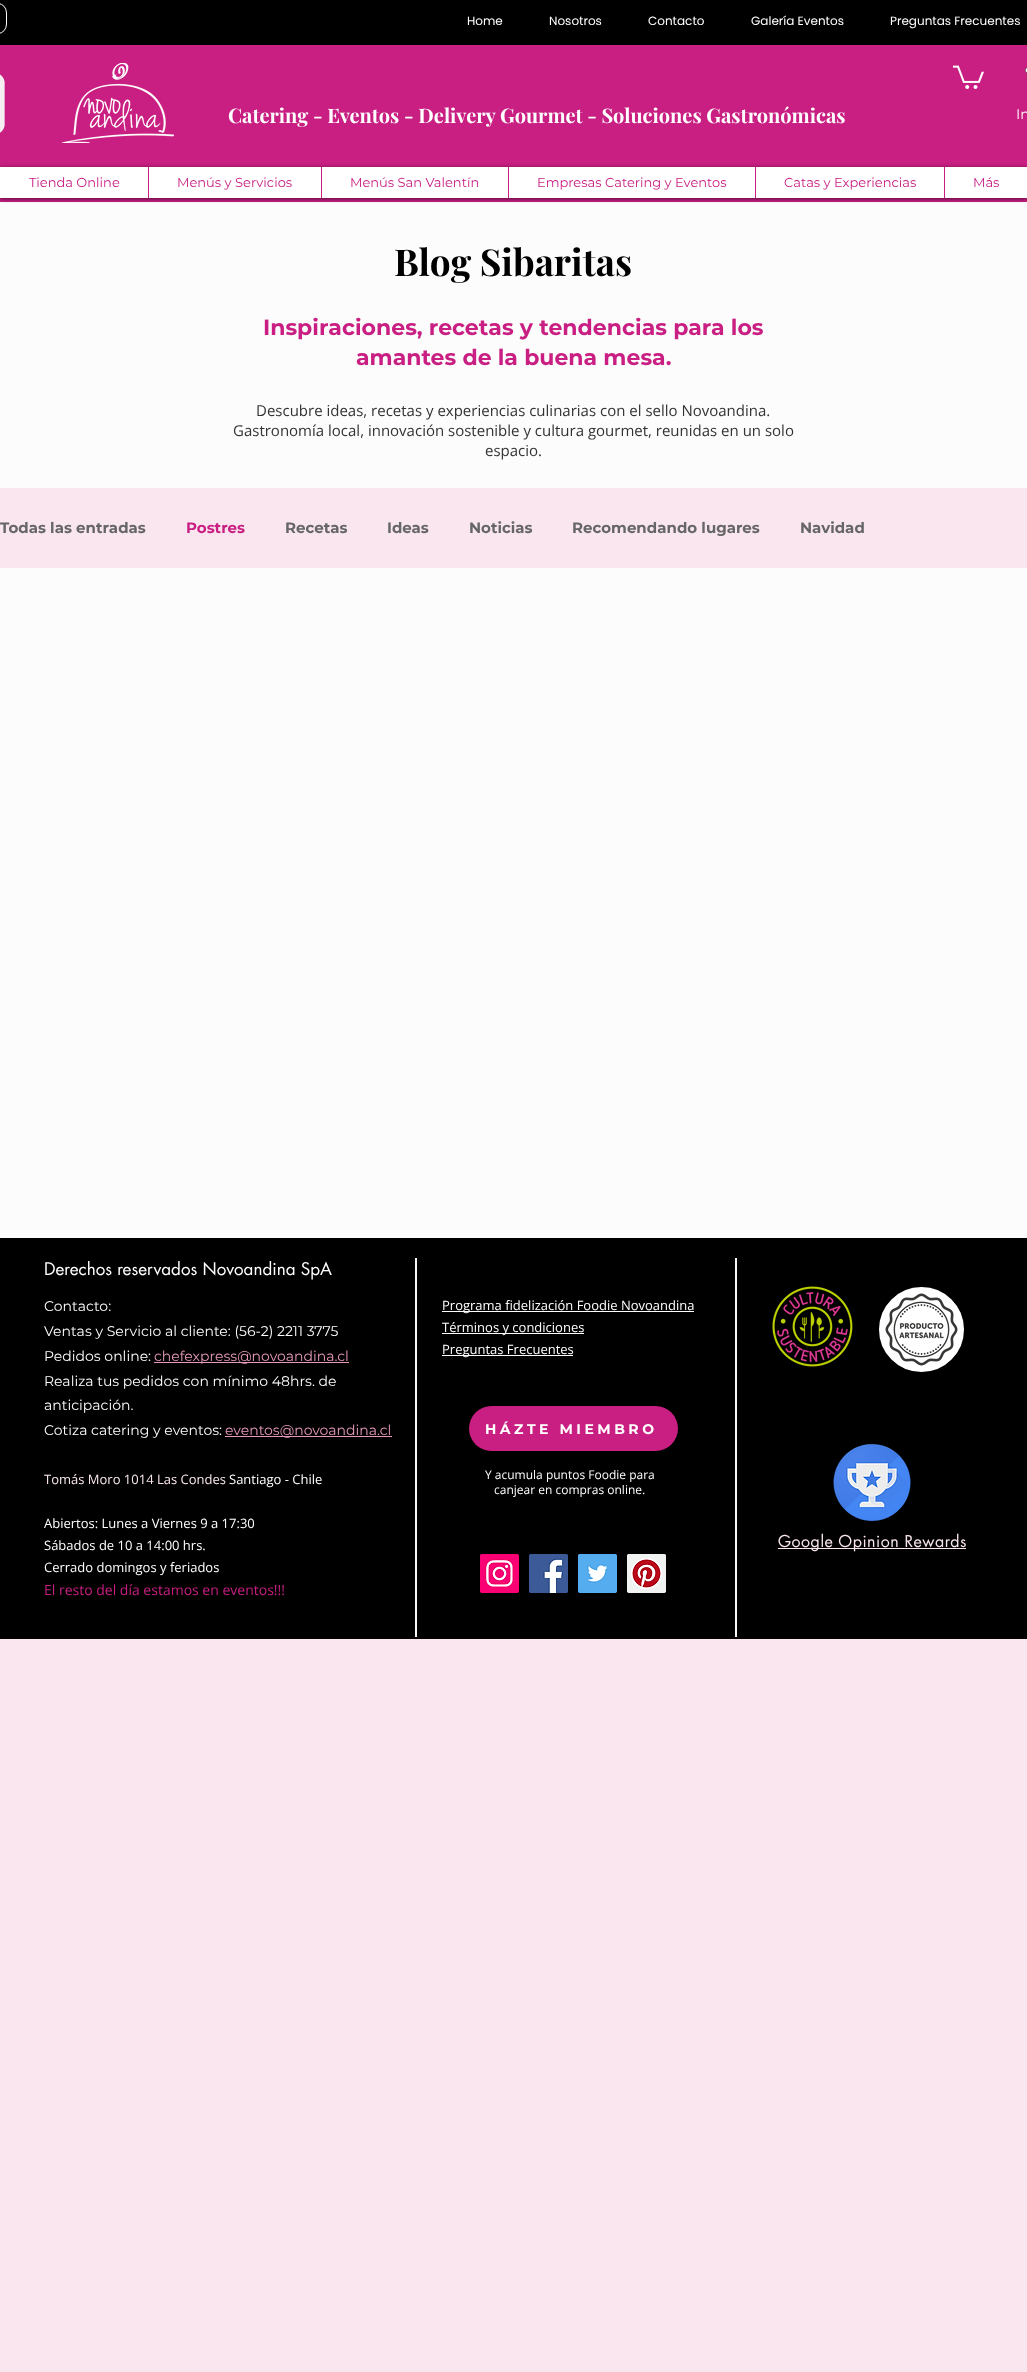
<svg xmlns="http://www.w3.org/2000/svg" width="1027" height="2372">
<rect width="100%" height="100%" fill="#fae6ef"/>
<rect width="1027" height="45" fill="#000"/>
<rect x="-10.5" y="3.5" width="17" height="30" rx="9.5" fill="none" stroke="#fff"/>
<text x="467" y="25" style="font-family:Poppins;font-size:12px;fill:#fff">Home</text>
<text x="549" y="25" style="font-family:Poppins;font-size:12px;fill:#fff">Nosotros</text>
<text x="648" y="25" style="font-family:Poppins;font-size:12px;fill:#fff">Contacto</text>
<text x="751" y="25" style="font-family:Poppins;font-size:12px;fill:#fff">Galería Eventos</text>
<text x="890" y="25" style="font-family:Poppins;font-size:12px;fill:#fff">Preguntas Frecuentes</text>
<rect y="45" width="1027" height="157" fill="#c91e82"/>
<image x="0" y="74" width="5" height="59" href="media/1.png"/>
<image x="62" y="63" width="112" height="80" href="media/2.png"/>
<text x="228" y="123" style="font-family:Playfair Display;font-size:20px;font-weight:bold;fill:#fff">Catering - Eventos - Delivery Gourmet - Soluciones Gastronómicas</text>
<image x="953" y="65" width="31" height="24" href="media/3.png"/>
<image x="1025" y="67" width="2" height="13" href="media/4.png"/>
<text x="1016" y="119" style="font-family:Montserrat;font-size:14px;fill:#fff">In</text>
<rect y="202" width="1027" height="1036" fill="#fcfcfc"/>
<rect y="168" width="1027" height="31" fill="#00000099" filter="blur(2px)"/>
<rect y="167" width="1027" height="31" fill="#fff"/>
<text x="29" y="187" style="font-family:Montserrat;font-size:13px;fill:#c91e82">Tienda Online</text>
<rect x="148" y="167" width="1" height="31" fill="#c91e82"/>
<text x="177" y="187" style="font-family:Montserrat;font-size:13px;fill:#c91e82">Menús y Servicios</text>
<rect x="321" y="167" width="1" height="31" fill="#c91e82"/>
<text x="350" y="187" style="font-family:Montserrat;font-size:13px;fill:#c91e82">Menús San Valentín</text>
<rect x="508" y="167" width="1" height="31" fill="#c91e82"/>
<text x="537" y="187" style="font-family:Montserrat;font-size:13px;fill:#c91e82">Empresas Catering y Eventos</text>
<rect x="755" y="167" width="1" height="31" fill="#c91e82"/>
<text x="784" y="187" style="font-family:Montserrat;font-size:13px;fill:#c91e82">Catas y Experiencias</text>
<rect x="944" y="167" width="1" height="31" fill="#c91e82"/>
<text x="973" y="187" style="font-family:Montserrat;font-size:13px;fill:#c91e82">Más</text>
<text x="394" y="276" style="font-family:Playfair Display;font-size:37px;font-weight:bold;fill:#000">Blog Sibaritas</text>
<text x="263" y="335" style="font-family:Montserrat;font-size:22px;font-weight:bold;fill:#c91e82">Inspiraciones, recetas y tendencias para los</text>
<text x="356" y="365" style="font-family:Montserrat;font-size:22px;font-weight:bold;fill:#c91e82">amantes de la buena mesa.</text>
<text x="256" y="416" style="font-family:Open Sans;font-size:15px;fill:#333">Descubre ideas, recetas y experiencias culinarias con el sello Novoandina.</text>
<text x="233" y="436" style="font-family:Open Sans;font-size:15px;fill:#333">Gastronomía local, innovación sostenible y cultura gourmet, reunidas en un solo</text>
<text x="485" y="456" style="font-family:Open Sans;font-size:15px;fill:#333">espacio.</text>
<rect y="488" width="1027" height="80" fill="#fae6ef"/>
<text x="0" y="533" style="font-family:Montserrat;font-size:15px;font-weight:bold;fill:#666">Todas las entradas</text>
<text x="186" y="533" style="font-family:Montserrat;font-size:15px;font-weight:bold;fill:#c91e82">Postres</text>
<text x="285" y="533" style="font-family:Montserrat;font-size:15px;font-weight:bold;fill:#666">Recetas</text>
<text x="387" y="533" style="font-family:Montserrat;font-size:15px;font-weight:bold;fill:#666">Ideas</text>
<text x="469" y="533" style="font-family:Montserrat;font-size:15px;font-weight:bold;fill:#666">Noticias</text>
<text x="572" y="533" style="font-family:Montserrat;font-size:15px;font-weight:bold;fill:#666">Recomendando lugares</text>
<text x="800" y="533" style="font-family:Montserrat;font-size:15px;font-weight:bold;fill:#666">Navidad</text>
<rect y="1238" width="1027" height="401" fill="#000"/>
<text x="44" y="1275" style="font-family:futura;font-size:17px;fill:#fff">Derechos reservados Novoandina SpA</text>
<rect x="415" y="1258" width="2" height="379" fill="#f7f7f7"/>
<rect x="735" y="1258" width="2" height="379" fill="#f7f7f7"/>
<text x="44" y="1311" style="font-family:Montserrat;font-size:14px;fill:#fff">Contacto:</text>
<text x="44" y="1336" style="font-family:Montserrat;font-size:14px;fill:#fff">Ventas y Servicio al cliente: (56-2) 2211 3775</text>
<text x="44" y="1361" style="font-family:Montserrat;font-size:14px;fill:#fff">Pedidos online:</text>
<rect x="154" y="1362" width="195" height="1" fill="#e899bb"/>
<text x="154" y="1361" style="font-family:Montserrat;font-size:14px;fill:#e899bb">chefexpress@novoandina.cl</text>
<text x="44" y="1386" style="font-family:Montserrat;font-size:14px;fill:#fff">Realiza tus pedidos con mínimo 48hrs. de</text>
<text x="44" y="1410" style="font-family:Montserrat;font-size:14px;fill:#fff">anticipación.</text>
<text x="44" y="1435" style="font-family:Montserrat;font-size:14px;fill:#fff">Cotiza catering y eventos:</text>
<rect x="225" y="1436" width="167" height="1" fill="#e899bb"/>
<text x="225" y="1435" style="font-family:Montserrat;font-size:14px;fill:#e899bb">eventos@novoandina.cl</text>
<text x="44" y="1484" style="font-family:Open Sans;font-size:13px;fill:#fae6ef">Tomás Moro 1014 Las Condes</text>
<text x="229" y="1484" style="font-family:Open Sans;font-size:13px;fill:#fff">Santiago - Chile</text>
<text x="44" y="1528" style="font-family:Open Sans;font-size:13px;fill:#fff">Abiertos: Lunes a Viernes 9 a 17:30</text>
<text x="44" y="1550" style="font-family:Open Sans;font-size:13px;fill:#fff">Sábados de 10 a 14:00 hrs.</text>
<text x="44" y="1572" style="font-family:Open Sans;font-size:13px;fill:#fff">Cerrado domingos y feriados</text>
<text x="44" y="1595" style="font-family:Open Sans;font-size:14px;fill:#c91e82">El resto del día estamos en eventos!!!</text>
<rect x="442" y="1311" width="252" height="1" fill="#fff"/>
<text x="442" y="1310" style="font-family:Open Sans;font-size:13px;fill:#fff">Programa fidelización Foodie Novoandina</text>
<rect x="442" y="1333" width="142" height="1" fill="#fff"/>
<text x="442" y="1332" style="font-family:Open Sans;font-size:13px;fill:#fff">Términos y condiciones</text>
<rect x="442" y="1355" width="131" height="1" fill="#fff"/>
<text x="442" y="1354" style="font-family:Open Sans;font-size:13px;fill:#fff">Preguntas Frecuentes</text>
<image x="772" y="1286" width="81" height="81" href="media/5.png"/>
<circle cx="921.5" cy="1329.5" r="39.5" fill="#fff" stroke="#fff" stroke-width="6"/>
<image x="885" y="1293" width="73" height="73" href="media/6.png"/>
<rect x="469" y="1406" width="209" height="45" rx="22.5" fill="#c91e82"/>
<text x="485" y="1434" style="font-family:Montserrat;font-size:14px;font-weight:bold;letter-spacing:3.5px;fill:#fff">HÁZTE MIEMBRO</text>
<text x="485" y="1479" style="font-family:Open Sans;font-size:12px;fill:#fff">Y acumula puntos Foodie para</text>
<text x="494" y="1494" style="font-family:Open Sans;font-size:12px;fill:#fff">canjear en compras online.</text>
<image x="833" y="1443" width="78" height="79" href="media/7.png"/>
<rect x="778" y="1548" width="188" height="1" fill="#fae6ef"/>
<text x="778" y="1547" style="font-family:futura;font-size:16px;letter-spacing:0.5px;fill:#fae6ef">Google Opinion Rewards</text>
<image x="480" y="1554" width="39" height="39" href="media/8.png"/>
<image x="529" y="1554" width="39" height="39" href="media/9.png"/>
<image x="578" y="1554" width="39" height="39" href="media/10.png"/>
<image x="627" y="1554" width="39" height="39" href="media/11.png"/>
</svg>
